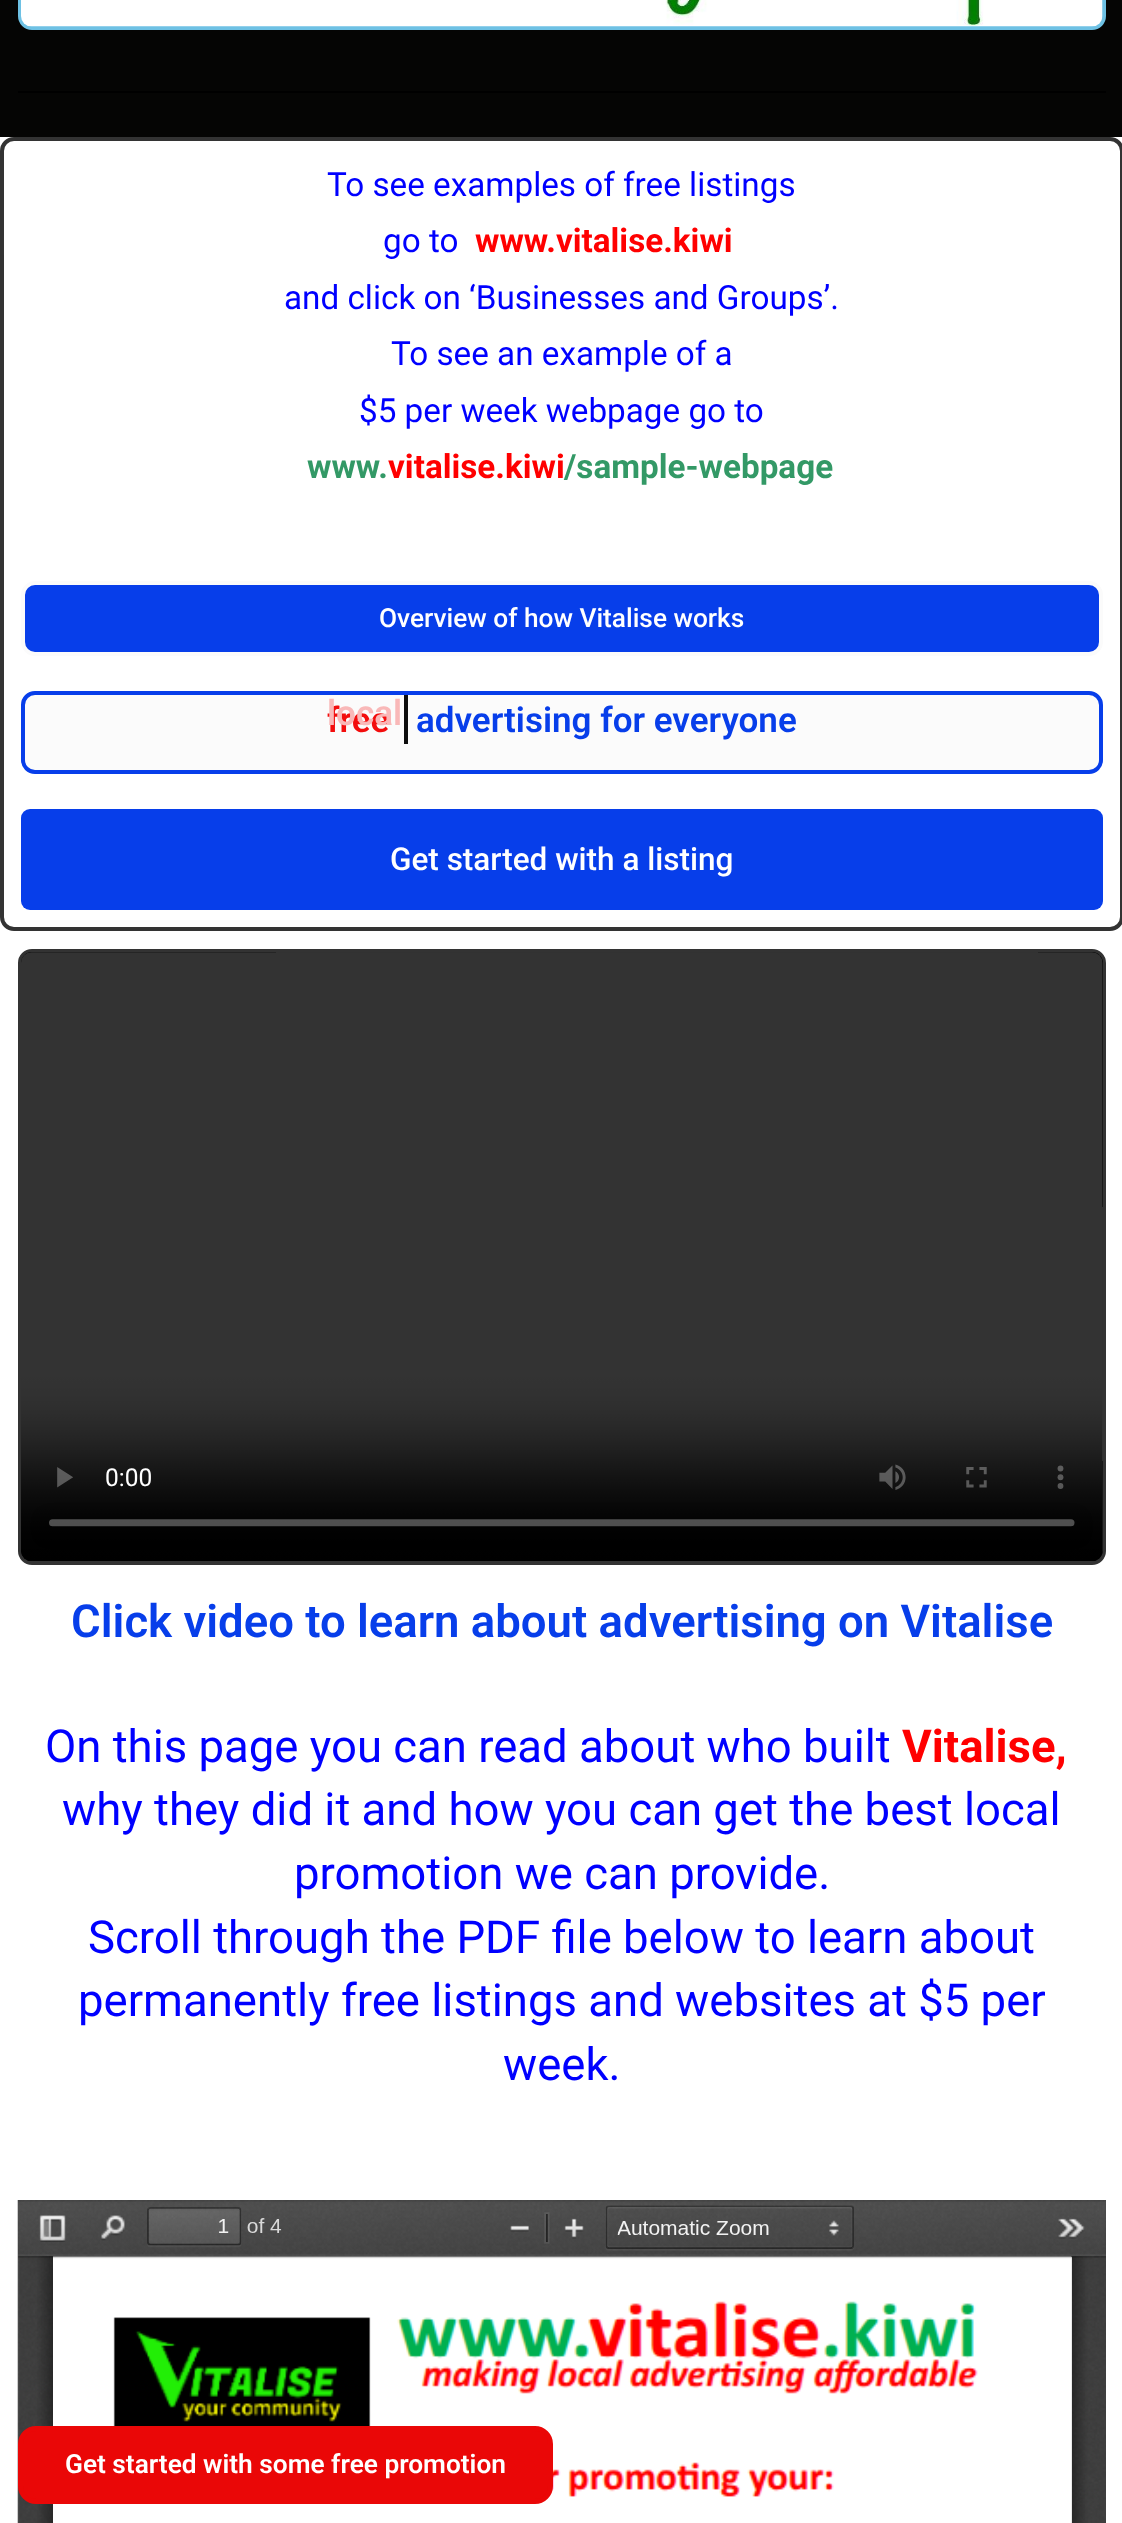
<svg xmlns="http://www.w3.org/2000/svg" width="1122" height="2523">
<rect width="100%" height="100%" fill="#fff"/>
<rect width="1122" height="137" fill="#050504"/>
<rect x="20" y="-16" width="1084" height="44" rx="12" fill="none" stroke="#6ec1e4" stroke-width="4"/>
<image x="21" y="0" width="1082" height="27" href="media/1.png"/>
<rect x="18" y="91" width="1088" height="2" fill="#000"/>
<rect x="2" y="139" width="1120" height="790" rx="12" fill="none" stroke="#333" stroke-width="4"/>
<text x="327" y="196" style="font-family:Roboto;font-size:33.25px;fill:#00f">To see examples of free listings</text>
<text x="383" y="252" style="font-family:Roboto;font-size:33.25px;fill:#00f">go to</text>
<text x="475" y="252" style="font-family:Roboto;font-size:33.25px;font-weight:bold;fill:#f00">www.vitalise.kiwi</text>
<text x="284" y="309" style="font-family:Roboto;font-size:33.25px;fill:#00f">and click on ‘Businesses and Groups’.</text>
<text x="391" y="365" style="font-family:Roboto;font-size:33.25px;fill:#00f">To see an example of a</text>
<text x="359" y="422" style="font-family:Roboto;font-size:33.25px;fill:#00f">$5 per week webpage go to</text>
<text x="307" y="478" style="font-family:Roboto;font-size:33.25px;font-weight:bold;fill:#396">www.</text>
<text x="388" y="478" style="font-family:Roboto;font-size:33.25px;font-weight:bold;fill:#f00">vitalise.kiwi</text>
<text x="564" y="478" style="font-family:Roboto;font-size:33.25px;font-weight:bold;fill:#396">/sample-webpage</text>
<rect x="23" y="583" width="1078" height="71" rx="12" fill="#073eea" stroke="#fbfbfb" stroke-width="4"/>
<text x="379" y="627" style="font-family:Roboto;font-size:26.25px;font-weight:500;fill:#fff">Overview of how Vitalise works</text>
<rect x="23" y="693" width="1078" height="79" rx="12" fill="#fbfbfb" stroke="#073eea" stroke-width="4"/>
<text x="327" y="732" style="font-family:Roboto;font-size:35px;font-weight:600;fill:#f30d0d">free</text>
<text x="327" y="725" style="font-family:Roboto;font-size:35px;font-weight:600;fill:#f9b8b8">local</text>
<rect x="404" y="695" width="4" height="49" fill="#0d0d0d"/>
<text x="416" y="732" style="font-family:Roboto;font-size:35px;font-weight:600;fill:#073eea">advertising for everyone</text>
<rect x="21" y="809" width="1082" height="101" rx="9" fill="#073eea"/>
<text x="390" y="870" style="font-family:Roboto;font-size:31.5px;font-weight:500;fill:#fff">Get started with a listing</text>
<rect x="20" y="951" width="1084" height="612" rx="12" fill="none" stroke="#333" stroke-width="4"/>
<rect x="21" y="952" width="1082" height="609" rx="11" fill="#000"/>
<image x="21" y="952" width="1082" height="609" href="media/2.png"/>
<text x="71" y="1637" style="font-family:Roboto;font-size:45.5px;font-weight:600;fill:#073eea">Click video to learn about advertising on Vitalise</text>
<text x="45" y="1762" style="font-family:Roboto;font-size:45.5px;fill:#00f">On this page you can read about who built</text>
<text x="902" y="1762" style="font-family:Roboto;font-size:45.5px;font-weight:bold;fill:#f00">Vitalise,</text>
<text x="62" y="1825" style="font-family:Roboto;font-size:45.5px;fill:#00f">why they did it and how you can get the best local</text>
<text x="294" y="1889" style="font-family:Roboto;font-size:45.5px;fill:#00f">promotion we can provide.</text>
<text x="88" y="1953" style="font-family:Roboto;font-size:45.5px;fill:#00f">Scroll through the PDF file below to learn about</text>
<text x="78" y="2016" style="font-family:Roboto;font-size:45.5px;fill:#00f">permanently free listings and websites at $5 per</text>
<text x="503" y="2080" style="font-family:Roboto;font-size:45.5px;fill:#00f">week.</text>
<image x="17" y="2200" width="1089" height="323" href="media/3.png"/>
<rect x="20.5" y="2428.5" width="530" height="73" rx="15.5" fill="#ea0707" stroke="#ea0707" stroke-width="5"/>
<text x="65" y="2473" style="font-family:Roboto;font-size:26.25px;font-weight:600;fill:#fff">Get started with some free promotion</text>
</svg>
